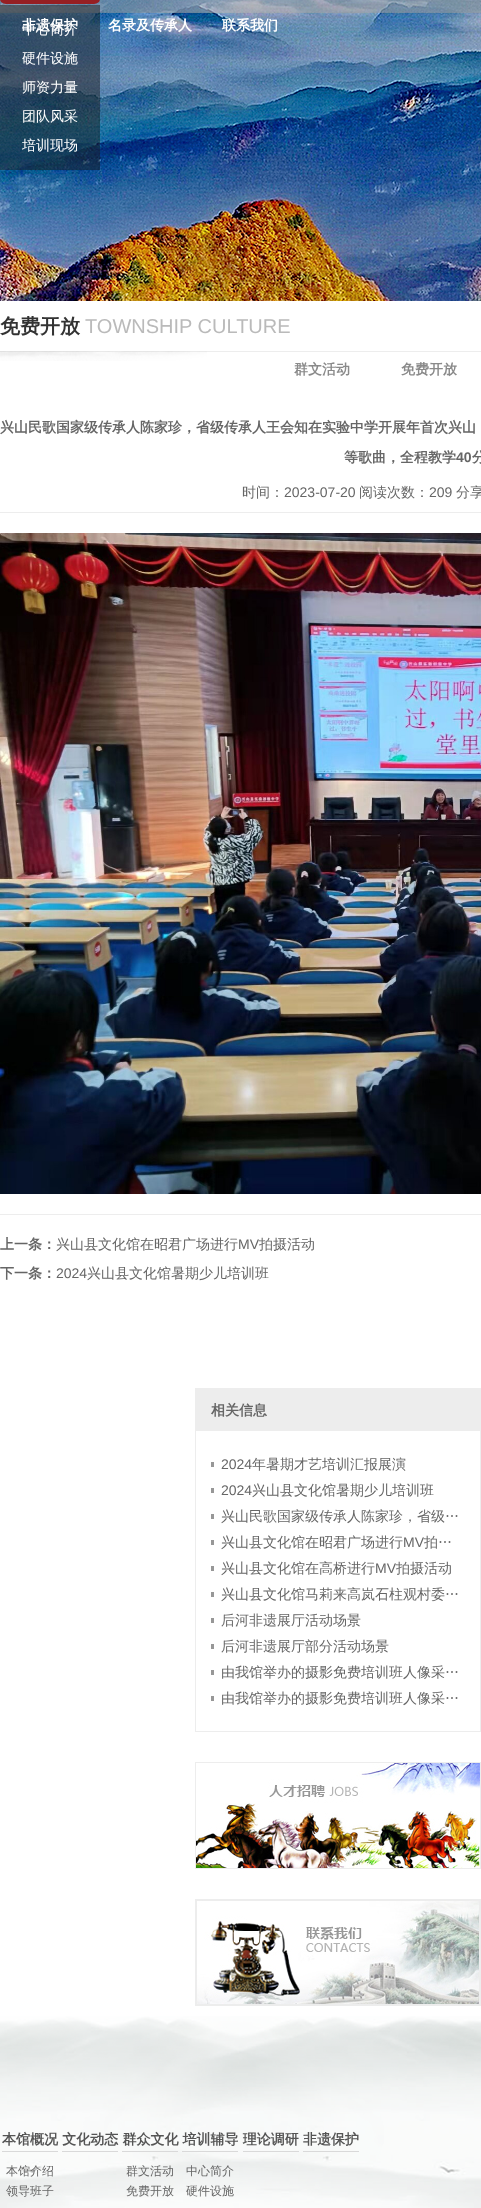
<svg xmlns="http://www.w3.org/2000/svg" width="481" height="2208">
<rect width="100%" height="100%" fill="#fff"/>
<image x="0" y="0" width="481" height="301" href="media/1.png"/>
<image x="0" y="0" width="481" height="13" href="media/2.png"/>
<rect y="5" width="100" height="165" fill="#1c1c1c80"/>
<text x="22" y="34" style="font-family:WenQuanYi Zen Hei;font-size:14px;font-weight:500;fill:#fff">中心简介</text>
<text x="22" y="30" style="font-family:WenQuanYi Zen Hei;font-size:14px;font-weight:bold;fill:#fff">非遗保护</text>
<text x="108" y="30" style="font-family:WenQuanYi Zen Hei;font-size:14px;font-weight:bold;fill:#fff">名录及传承人</text>
<text x="222" y="30" style="font-family:WenQuanYi Zen Hei;font-size:14px;font-weight:bold;fill:#fff">联系我们</text>
<rect y="-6" width="100" height="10" rx="6" fill="#961f23"/>
<text x="22" y="63" style="font-family:WenQuanYi Zen Hei;font-size:14px;font-weight:500;fill:#fff">硬件设施</text>
<text x="22" y="92" style="font-family:WenQuanYi Zen Hei;font-size:14px;font-weight:500;fill:#fff">师资力量</text>
<text x="22" y="121" style="font-family:WenQuanYi Zen Hei;font-size:14px;font-weight:500;fill:#fff">团队风采</text>
<text x="22" y="150" style="font-family:WenQuanYi Zen Hei;font-size:14px;font-weight:500;fill:#fff">培训现场</text>
<rect y="351" width="481" height="1" fill="#ededed"/>
<text x="0" y="333" style="font-family:WenQuanYi Zen Hei;font-size:20px;font-weight:bold;fill:#333">免费开放</text>
<text x="85" y="333" style="font-family:Liberation Sans;font-size:20px;fill:#bababa">TOWNSHIP CULTURE</text>
<text x="294" y="374" style="font-family:WenQuanYi Zen Hei;font-size:14px;font-weight:bold;fill:#8a8a8a">群文活动</text>
<text x="401" y="374" style="font-family:WenQuanYi Zen Hei;font-size:14px;font-weight:bold;fill:#8a8a8a">免费开放</text>
<image x="0" y="351" width="207" height="10" href="media/3.png"/>
<text x="0" y="432" style="font-family:WenQuanYi Zen Hei;font-size:14px;font-weight:bold;fill:#666">兴山民歌国家级传承人陈家珍，省级传承人王会知在实验中学开展年首次兴山</text>
<text x="344" y="462" style="font-family:WenQuanYi Zen Hei;font-size:14px;font-weight:bold;fill:#666">等歌曲，全程教学</text>
<text x="456" y="462" style="font-family:Liberation Sans;font-size:14px;font-weight:bold;fill:#666">40</text>
<text x="472" y="462" style="font-family:WenQuanYi Zen Hei;font-size:14px;font-weight:bold;fill:#666">分</text>
<rect y="512" width="481" height="1" fill="#ededed"/>
<text x="242" y="497" style="font-family:WenQuanYi Zen Hei;font-size:14px;font-weight:500;fill:#666">时间：</text>
<text x="284" y="497" style="font-family:Liberation Sans;font-size:14px;fill:#666">2023-07-20</text>
<text x="359" y="497" style="font-family:WenQuanYi Zen Hei;font-size:14px;font-weight:500;fill:#666">阅读次数：</text>
<text x="429" y="497" style="font-family:Liberation Sans;font-size:14px;fill:#666">209</text>
<text x="456" y="497" style="font-family:WenQuanYi Zen Hei;font-size:14px;font-weight:500;fill:#666">分享</text>
<image x="0" y="533" width="481" height="661" href="media/4.png"/>
<rect y="1214" width="481" height="1" fill="#ededed"/>
<text x="0" y="1249" style="font-family:WenQuanYi Zen Hei;font-size:14px;font-weight:bold;fill:#666">上一条：</text>
<text x="56" y="1249" style="font-family:WenQuanYi Zen Hei;font-size:14px;font-weight:500;fill:#666">兴山县文化馆在昭君广场进行</text>
<text x="238" y="1249" style="font-family:Liberation Sans;font-size:14px;fill:#666">MV</text>
<text x="259" y="1249" style="font-family:WenQuanYi Zen Hei;font-size:14px;font-weight:500;fill:#666">拍摄活动</text>
<text x="0" y="1278" style="font-family:WenQuanYi Zen Hei;font-size:14px;font-weight:bold;fill:#666">下一条：</text>
<text x="56" y="1278" style="font-family:Liberation Sans;font-size:14px;fill:#666">2024</text>
<text x="87" y="1278" style="font-family:WenQuanYi Zen Hei;font-size:14px;font-weight:500;fill:#666">兴山县文化馆暑期少儿培训班</text>
<rect x="195.5" y="1388.5" width="285" height="343" fill="none" stroke="#ededed"/>
<rect x="196" y="1389" width="284" height="42" fill="#ededed"/>
<text x="211" y="1415" style="font-family:WenQuanYi Zen Hei;font-size:14px;font-weight:bold;fill:#666">相关信息</text>
<rect x="211" y="1462" width="3" height="5" fill="#979797"/>
<text x="221" y="1469" style="font-family:Liberation Sans;font-size:14px;fill:#666">2024</text>
<text x="252" y="1469" style="font-family:WenQuanYi Zen Hei;font-size:14px;font-weight:500;fill:#666">年暑期才艺培训汇报展演</text>
<rect x="211" y="1488" width="3" height="5" fill="#979797"/>
<text x="221" y="1495" style="font-family:Liberation Sans;font-size:14px;fill:#666">2024</text>
<text x="252" y="1495" style="font-family:WenQuanYi Zen Hei;font-size:14px;font-weight:500;fill:#666">兴山县文化馆暑期少儿培训班</text>
<rect x="211" y="1514" width="3" height="5" fill="#979797"/>
<text x="221" y="1521" style="font-family:WenQuanYi Zen Hei;font-size:14px;font-weight:500;fill:#666">兴山民歌国家级传承人陈家珍，省级…</text>
<rect x="211" y="1540" width="3" height="5" fill="#979797"/>
<text x="221" y="1547" style="font-family:WenQuanYi Zen Hei;font-size:14px;font-weight:500;fill:#666">兴山县文化馆在昭君广场进行</text>
<text x="403" y="1547" style="font-family:Liberation Sans;font-size:14px;fill:#666">MV</text>
<text x="424" y="1547" style="font-family:WenQuanYi Zen Hei;font-size:14px;font-weight:500;fill:#666">拍…</text>
<rect x="211" y="1566" width="3" height="5" fill="#979797"/>
<text x="221" y="1573" style="font-family:WenQuanYi Zen Hei;font-size:14px;font-weight:500;fill:#666">兴山县文化馆在高桥进行</text>
<text x="375" y="1573" style="font-family:Liberation Sans;font-size:14px;fill:#666">MV</text>
<text x="396" y="1573" style="font-family:WenQuanYi Zen Hei;font-size:14px;font-weight:500;fill:#666">拍摄活动</text>
<rect x="211" y="1592" width="3" height="5" fill="#979797"/>
<text x="221" y="1599" style="font-family:WenQuanYi Zen Hei;font-size:14px;font-weight:500;fill:#666">兴山县文化馆马莉来高岚石柱观村委…</text>
<rect x="211" y="1618" width="3" height="5" fill="#979797"/>
<text x="221" y="1625" style="font-family:WenQuanYi Zen Hei;font-size:14px;font-weight:500;fill:#666">后河非遗展厅活动场景</text>
<rect x="211" y="1644" width="3" height="5" fill="#979797"/>
<text x="221" y="1651" style="font-family:WenQuanYi Zen Hei;font-size:14px;font-weight:500;fill:#666">后河非遗展厅部分活动场景</text>
<rect x="211" y="1670" width="3" height="5" fill="#979797"/>
<text x="221" y="1677" style="font-family:WenQuanYi Zen Hei;font-size:14px;font-weight:500;fill:#666">由我馆举办的摄影免费培训班人像采…</text>
<rect x="211" y="1696" width="3" height="5" fill="#979797"/>
<text x="221" y="1703" style="font-family:WenQuanYi Zen Hei;font-size:14px;font-weight:500;fill:#666">由我馆举办的摄影免费培训班人像采…</text>
<rect x="195.5" y="1762.5" width="285" height="106" fill="none" stroke="#ededed"/>
<image x="196" y="1763" width="284" height="105" href="media/5.png"/>
<rect x="195.5" y="1899.5" width="285" height="106" fill="none" stroke="#ededed"/>
<image x="196" y="1900" width="284" height="105" href="media/6.png"/>
<image x="0" y="2016" width="481" height="192" href="media/7.png"/>
<rect x="2" y="2151" width="56" height="1" fill="#d9d9d9"/>
<text x="2" y="2144" style="font-family:WenQuanYi Zen Hei;font-size:14px;font-weight:bold;fill:#555">本馆概况 文化动态 群众文化 培训辅导 理论调研 非遗保护</text>
<text x="6" y="2175" style="font-family:WenQuanYi Zen Hei;font-size:12px;font-weight:500;fill:#666">本馆介绍</text>
<text x="6" y="2195" style="font-family:WenQuanYi Zen Hei;font-size:12px;font-weight:500;fill:#666">领导班子</text>
<rect x="62" y="2151" width="56" height="1" fill="#d9d9d9"/>
<rect x="243" y="2151" width="56" height="1" fill="#d9d9d9"/>
<rect x="303" y="2151" width="56" height="1" fill="#d9d9d9"/>
<rect x="122" y="2151" width="56" height="1" fill="#d9d9d9"/>
<text x="126" y="2175" style="font-family:WenQuanYi Zen Hei;font-size:12px;font-weight:500;fill:#666">群文活动</text>
<text x="126" y="2195" style="font-family:WenQuanYi Zen Hei;font-size:12px;font-weight:500;fill:#666">免费开放</text>
<rect x="182" y="2151" width="56" height="1" fill="#d9d9d9"/>
<text x="186" y="2175" style="font-family:WenQuanYi Zen Hei;font-size:12px;font-weight:500;fill:#666">中心简介</text>
<text x="186" y="2195" style="font-family:WenQuanYi Zen Hei;font-size:12px;font-weight:500;fill:#666">硬件设施</text>
</svg>
